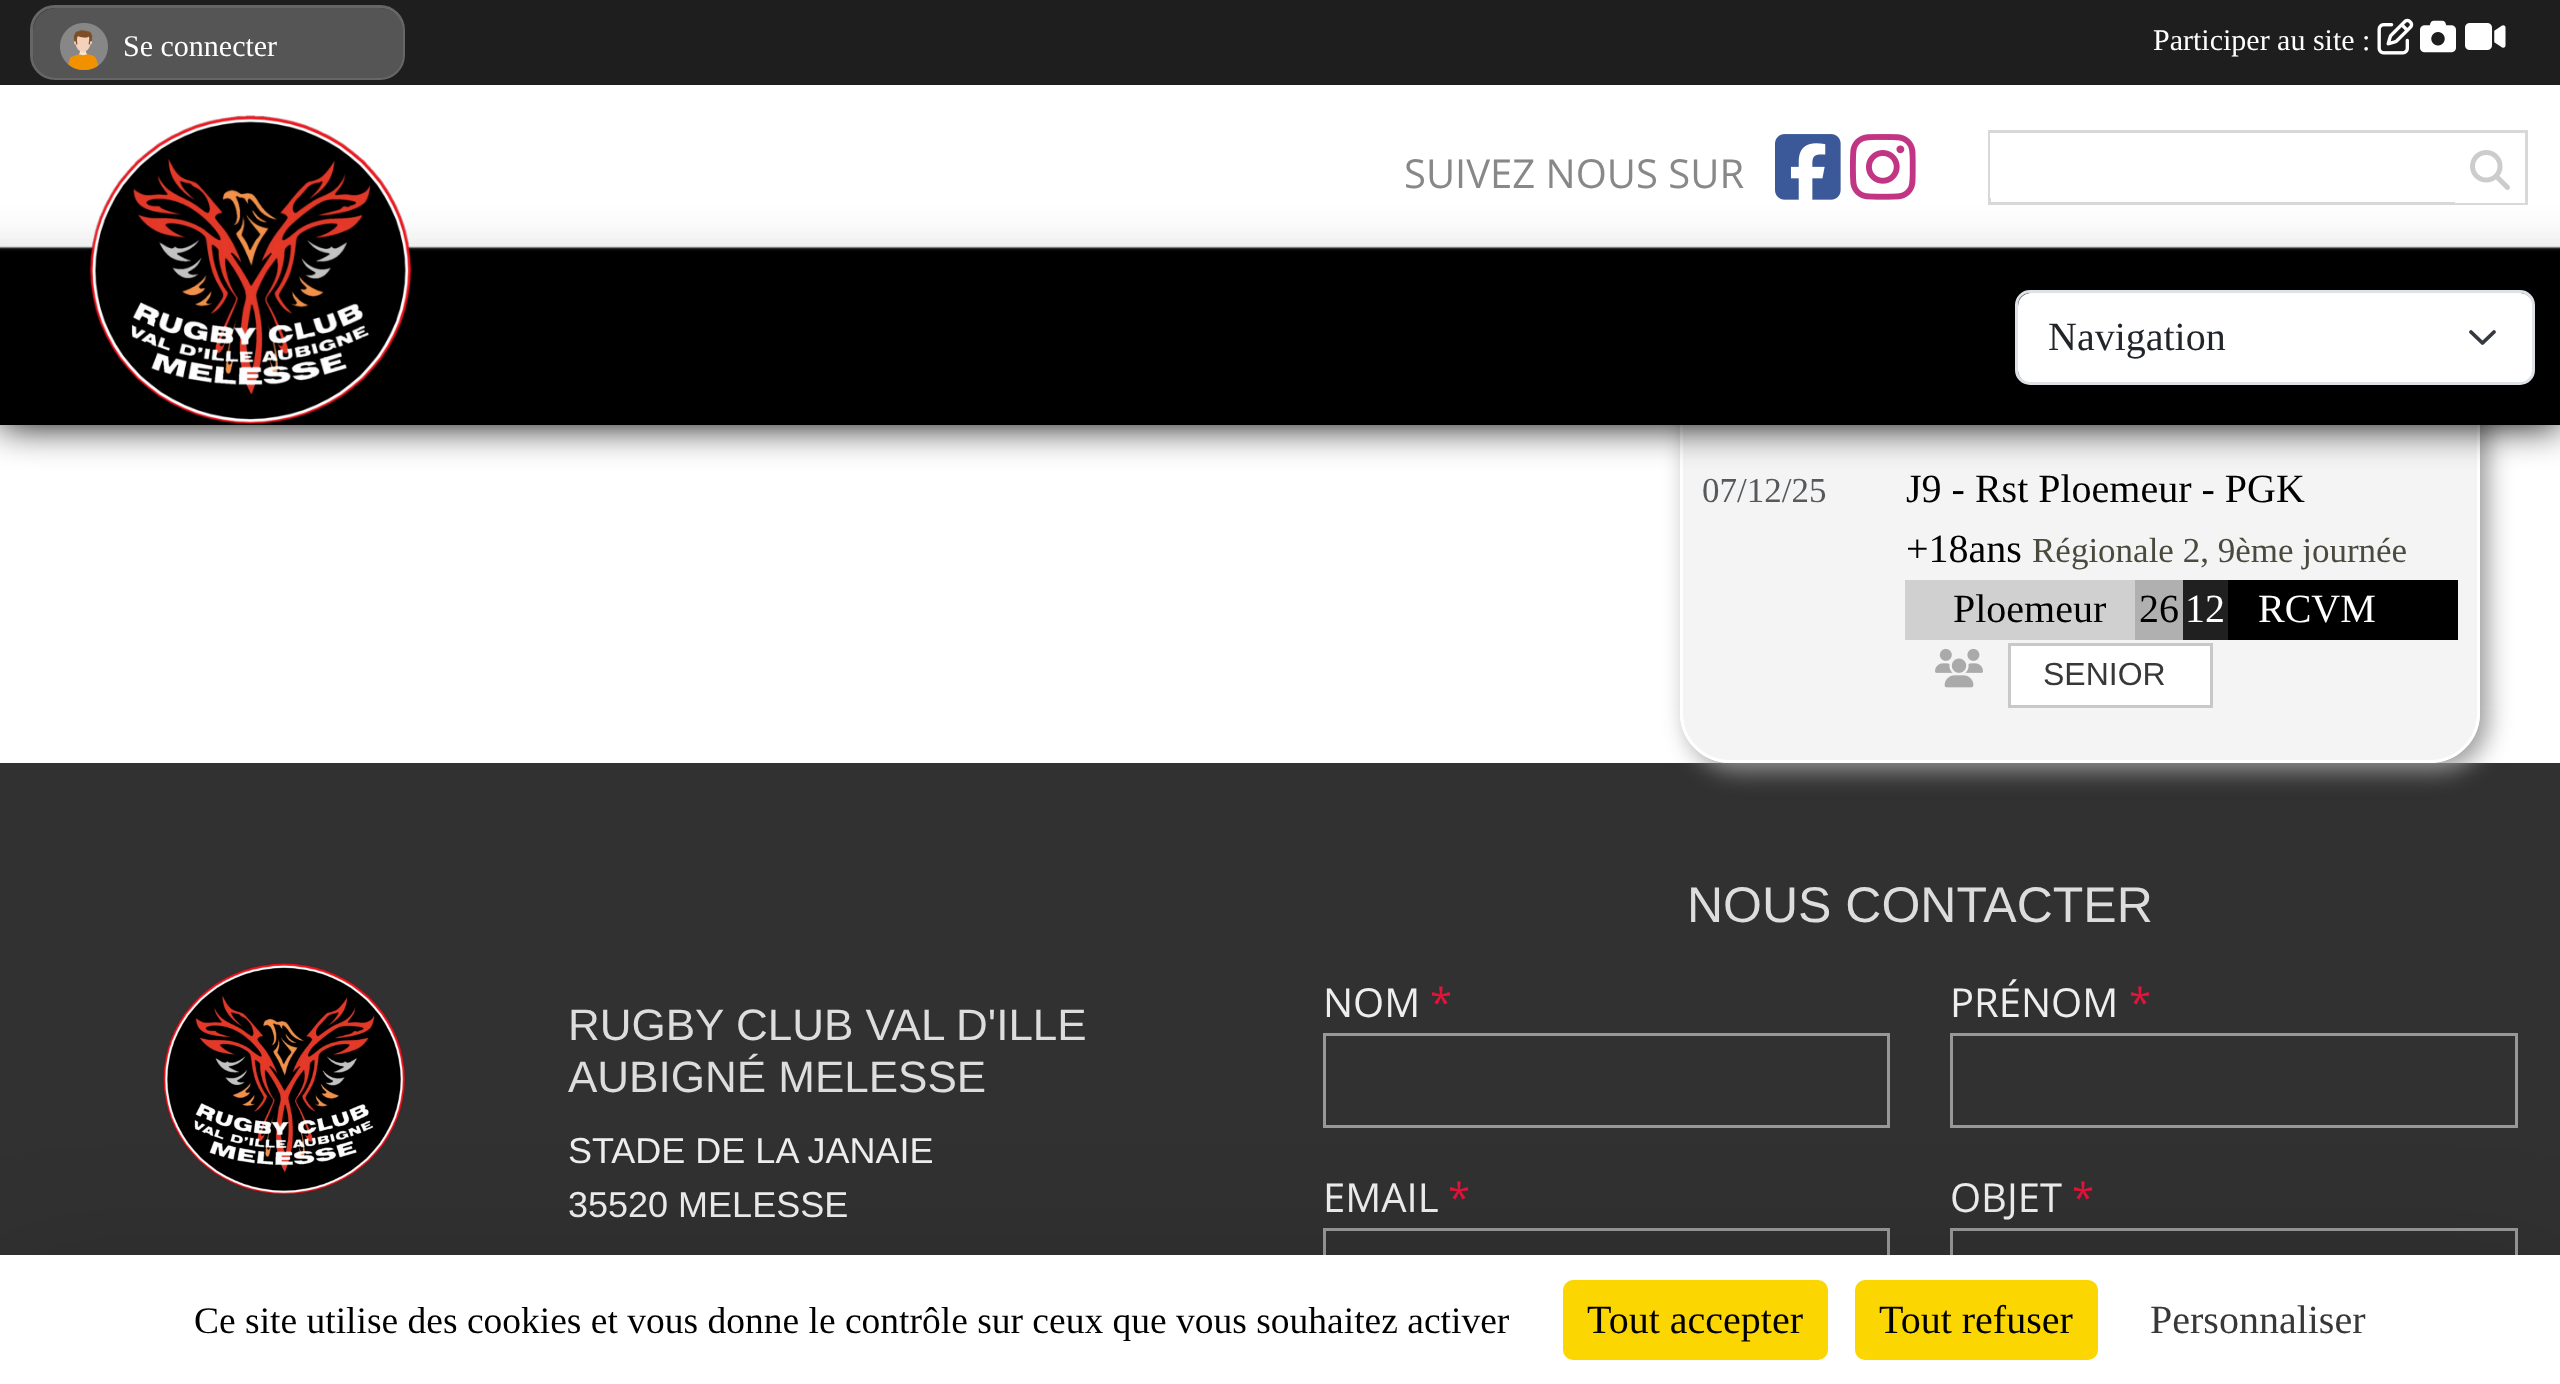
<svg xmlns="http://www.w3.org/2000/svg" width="2560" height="1384">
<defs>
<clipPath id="clip1"><path d="M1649 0h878v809h-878zm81-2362h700c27.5 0 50 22.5 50 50v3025c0 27.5-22.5 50-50 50h-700c-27.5 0-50-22.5-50-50v-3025c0-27.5 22.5-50 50-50z" clip-rule="evenodd"/></clipPath>
</defs>
<rect width="100%" height="100%" fill="#313131"/>
<rect y="425" width="2560" height="338" fill="#fff"/>
<g clip-path="url(#clip1)">
<rect x="1688" y="-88" width="800" height="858" rx="50" fill="#999" filter="blur(12.5px)"/>
</g>
<rect x="1681.5" y="-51.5" width="797" height="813" rx="48.5" fill="#f0f0f0b3" stroke="#fff" stroke-width="3"/>
<rect y="85" width="2560" height="340" fill="#000" filter="blur(19px)"/>
<rect width="2560" height="85" fill="#1e1e1e"/>
<rect x="31.5" y="6.5" width="372" height="72" rx="23.5" fill="#333" stroke="#666" stroke-width="3"/>
<rect x="33" y="8" width="370" height="70" rx="23" fill="#555"/>
<image x="60" y="23" width="48" height="47" href="media/1.png"/>
<text x="123" y="56" style="font-family:Liberation Serif;font-size:30px;fill:#fff">Se connecter</text>
<text x="2153" y="50" style="font-family:Liberation Serif;font-size:30px;fill:#fff">Participer au site :</text>
<image x="2377" y="18" width="37" height="37" href="media/2.png"/>
<image x="2420" y="20" width="36" height="33" href="media/3.png"/>
<image x="2465" y="23" width="41" height="27" href="media/4.png"/>
<rect y="246" width="2560" height="179" fill="#000"/>
<image x="0" y="85" width="2560" height="166" href="media/5.png"/>
<image x="89" y="115" width="323" height="310" href="media/6.png"/>
<text x="1404" y="188" style="font-family:Open Sans;font-size:40px;fill:#888">SUIVEZ NOUS SUR</text>
<image x="1775" y="134" width="66" height="66" href="media/7.png"/>
<image x="1850" y="134" width="66" height="66" href="media/8.png"/>
<rect x="1989.5" y="131.5" width="537" height="72" fill="none" stroke="#d8d8d8" stroke-width="3"/>
<rect x="1990" y="133" width="1" height="65" fill="#fff"/>
<rect x="2455" y="202" width="70" height="1" fill="#fff"/>
<image x="2470" y="150" width="40" height="40" href="media/9.png"/>
<rect x="2018" y="293" width="515" height="90" rx="13" fill="#fff"/>
<path d="M2471 332l11.5 11l11.5-11" fill="none" stroke="#343a40" stroke-width="3.8" stroke-linecap="round" stroke-linejoin="round"/>
<rect x="2016.5" y="291.5" width="517" height="92" rx="13.5" fill="none" stroke="#dee2e6" stroke-width="3"/>
<text x="2048" y="350" style="font-family:Liberation Serif;font-size:40px;fill:#212529">Navigation</text>
<text x="1702" y="502" style="font-family:Liberation Serif;font-size:35px;fill:#56595c">07/12/25</text>
<text x="1906" y="502" style="font-family:Liberation Serif;font-size:40px;fill:#000">J9 - Rst Ploemeur - PGK</text>
<text x="1906" y="562" style="font-family:Liberation Serif;font-size:40px;fill:#000">+18ans</text>
<text x="2032" y="562" style="font-family:Liberation Serif;font-size:35px;fill:#4a4a3e">Régionale 2, 9ème journée</text>
<rect x="1905" y="580" width="230" height="60" fill="#d0d0d0"/>
<text x="1953" y="622" style="font-family:Liberation Serif;font-size:40px;fill:#000">Ploemeur</text>
<rect x="2135" y="580" width="48" height="60" fill="#b0b0b0"/>
<text x="2139" y="622" style="font-family:Liberation Serif;font-size:40px;fill:#000">26</text>
<rect x="2183" y="580" width="45" height="60" fill="#202020"/>
<text x="2185" y="622" style="font-family:Liberation Serif;font-size:40px;fill:#fff">12</text>
<rect x="2228" y="580" width="230" height="60" fill="#000"/>
<text x="2258" y="622" style="font-family:Liberation Serif;font-size:40px;fill:#fff">RCVM</text>
<image x="1935" y="648" width="48" height="40" href="media/10.png"/>
<rect x="2009.5" y="644.5" width="202" height="62" fill="#fff" stroke="#c9c7c7" stroke-width="3"/>
<text x="2043" y="685" style="font-family:Liberation Sans;font-size:32px;fill:#383838">SENIOR</text>
<image x="163" y="963" width="243" height="232" href="media/11.png"/>
<text x="568" y="1040" style="font-family:Liberation Sans;font-size:44px;fill:#ddd">RUGBY CLUB VAL D'ILLE</text>
<text x="568" y="1092" style="font-family:Liberation Sans;font-size:44px;fill:#ddd">AUBIGNÉ MELESSE</text>
<text x="568" y="1163" style="font-family:Liberation Sans;font-size:36px;fill:#eee">STADE DE LA JANAIE</text>
<text x="568" y="1217" style="font-family:Liberation Sans;font-size:36px;fill:#eee">35520 MELESSE</text>
<text x="1687" y="922" style="font-family:Liberation Sans;font-size:50px;fill:#ddd">NOUS CONTACTER</text>
<text x="1323" y="1017" style="font-family:Open Sans;font-size:40px;fill:#eee">NOM</text>
<text x="1430" y="1017" style="font-family:Open Sans;font-size:40px;fill:#e4133a">*</text>
<rect x="1324.5" y="1034.5" width="564" height="92" fill="none" stroke="#989898" stroke-width="3"/>
<text x="1323" y="1212" style="font-family:Open Sans;font-size:40px;fill:#eee">EMAIL</text>
<text x="1448" y="1212" style="font-family:Open Sans;font-size:40px;fill:#e4133a">*</text>
<rect x="1324.5" y="1229.5" width="564" height="92" fill="none" stroke="#989898" stroke-width="3"/>
<text x="1950" y="1017" style="font-family:Open Sans;font-size:40px;fill:#eee">PRÉNOM</text>
<text x="2129" y="1017" style="font-family:Open Sans;font-size:40px;fill:#e4133a">*</text>
<rect x="1951.5" y="1034.5" width="565" height="92" fill="none" stroke="#989898" stroke-width="3"/>
<text x="1950" y="1212" style="font-family:Open Sans;font-size:40px;fill:#eee">OBJET</text>
<text x="2072" y="1212" style="font-family:Open Sans;font-size:40px;fill:#e4133a">*</text>
<rect x="1951.5" y="1229.5" width="565" height="92" fill="none" stroke="#989898" stroke-width="3"/>
<rect y="1305" width="2560" height="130" fill="#00000040" filter="blur(75px)"/>
<rect y="1255" width="2560" height="129" fill="#fff"/>
<text x="194" y="1333" style="font-family:Liberation Serif;font-size:37.5px;fill:#000">Ce site utilise des cookies et vous donne le contrôle sur ceux que vous souhaitez activer</text>
<rect x="1563" y="1280" width="265" height="80" rx="10" fill="#fbd600"/>
<text x="1587" y="1333" style="font-family:Liberation Serif;font-size:40px;fill:#000">Tout accepter</text>
<rect x="1855" y="1280" width="243" height="80" rx="10" fill="#fbd600"/>
<text x="1879" y="1333" style="font-family:Liberation Serif;font-size:40px;fill:#000">Tout refuser</text>
<text x="2150" y="1333" style="font-family:Liberation Serif;font-size:40px;fill:#383838">Personnaliser</text>
</svg>
